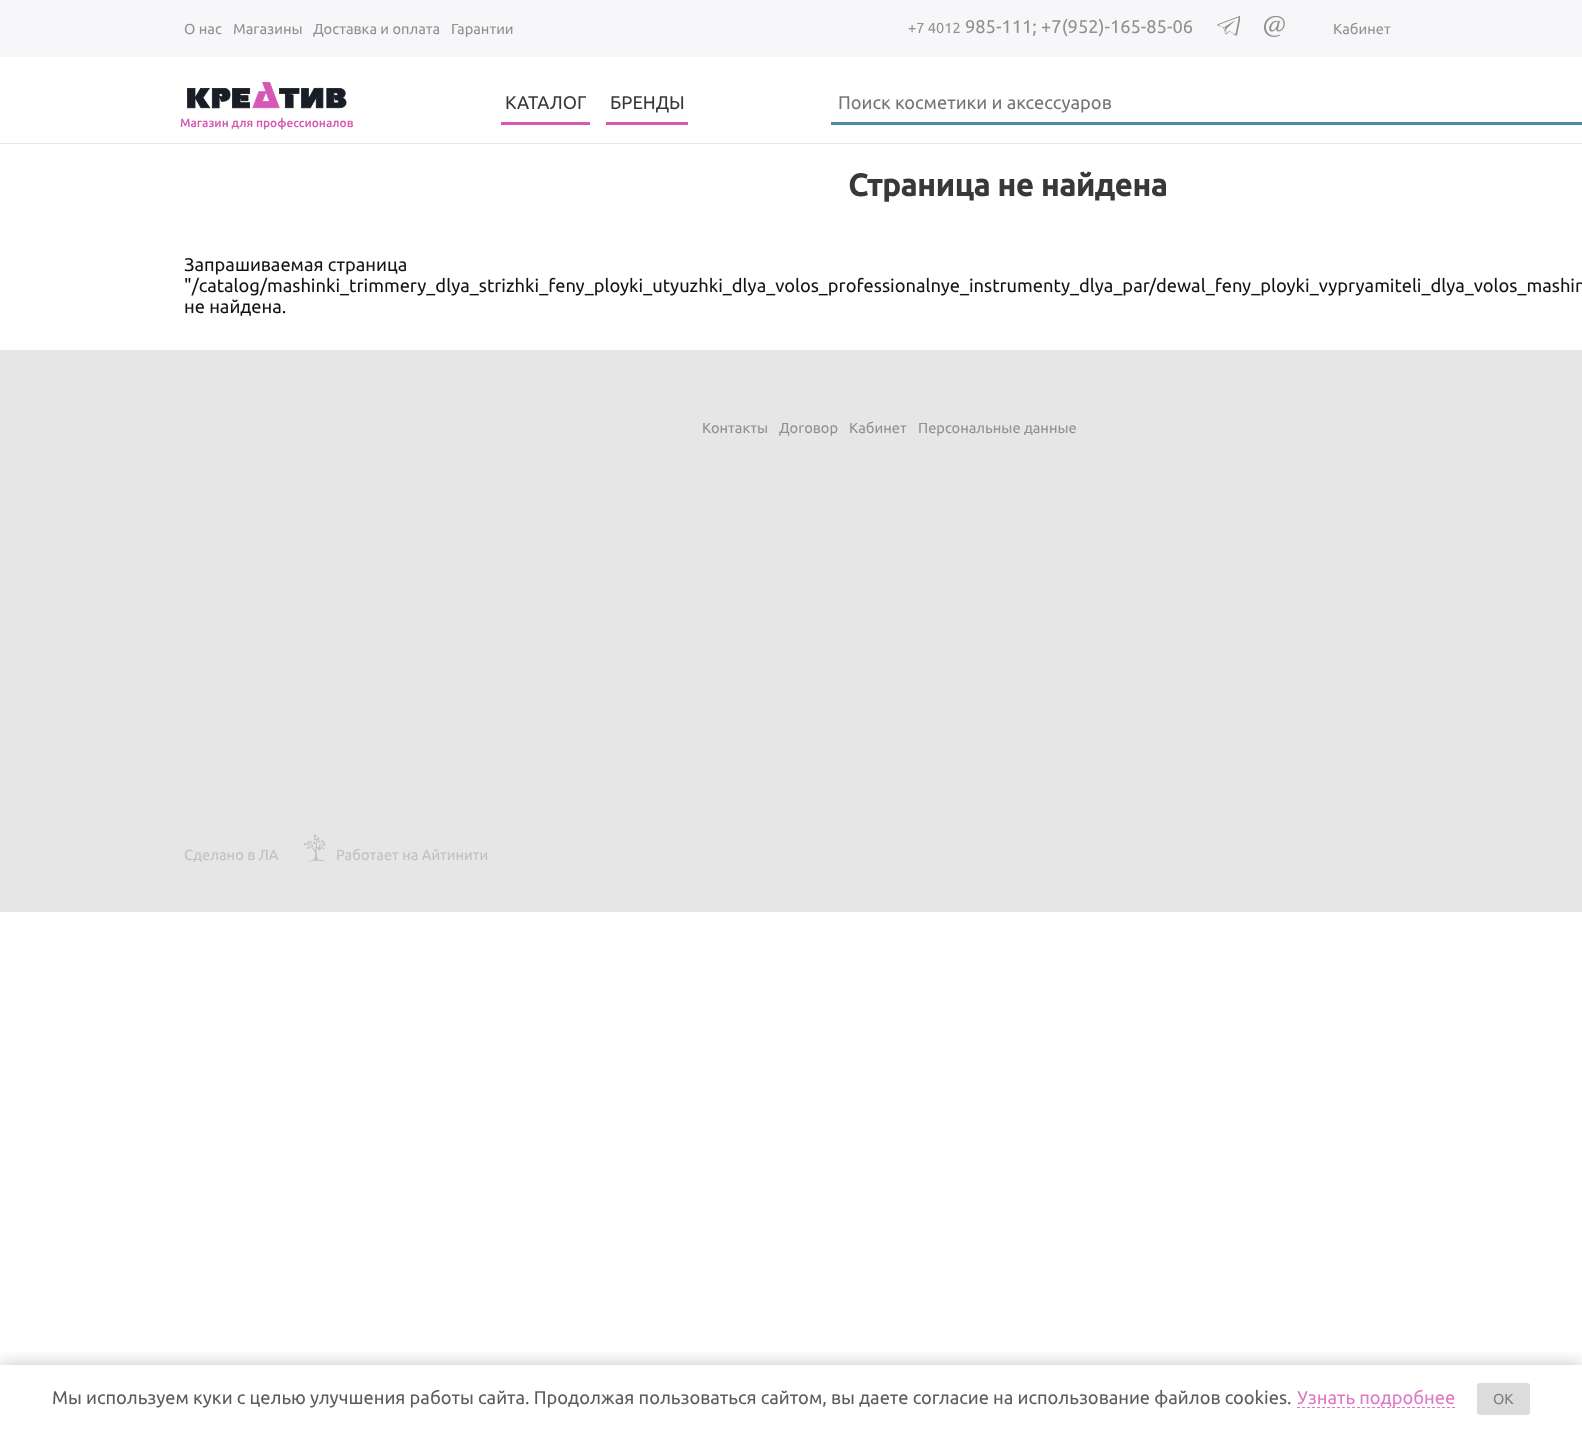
<svg xmlns="http://www.w3.org/2000/svg" width="1582" height="1433">
<defs>
<clipPath id="clip1"><rect x="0" y="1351" width="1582" height="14"/></clipPath>
</defs>
<rect width="100%" height="100%" fill="#fff"/>
<rect width="1582" height="57" fill="#f7f7f9"/>
<text x="184" y="34" style="font-family:Ubuntu;font-size:14.6px;fill:#919191">О нас</text>
<text x="233" y="34" style="font-family:Ubuntu;font-size:14.6px;fill:#919191">Магазины</text>
<text x="313" y="34" style="font-family:Ubuntu;font-size:14.6px;fill:#919191">Доставка и оплата</text>
<text x="451" y="34" style="font-family:Ubuntu;font-size:14.6px;fill:#919191">Гарантии</text>
<text x="908" y="33" style="font-family:Ubuntu;font-size:14.6px;fill:#919191">+7 4012</text>
<text x="965" y="33" style="font-family:Ubuntu;font-size:18.3px;fill:#919191">985-111; +7(952)-165-85-06</text>
<image x="1217" y="16" width="23" height="20" href="media/1.png"/>
<image x="1264" y="16" width="21" height="21" href="media/2.png"/>
<text x="1333" y="34" style="font-family:Ubuntu;font-size:14.6px;fill:#919191">Кабинет</text>
<rect y="143" width="1582" height="1" fill="#e6e6e6"/>
<rect x="501" y="122" width="89" height="3" fill="#d757b5"/>
<text x="505" y="109" style="font-family:Ubuntu;font-size:18.3px;fill:#383838">КАТАЛОГ</text>
<rect x="606" y="122" width="82" height="3" fill="#d757b5"/>
<text x="610" y="109" style="font-family:Ubuntu;font-size:18.3px;fill:#383838">БРЕНДЫ</text>
<rect x="831" y="122" width="751" height="3" fill="#4b8aa8"/>
<text x="838" y="109" style="font-family:Ubuntu;font-size:18.3px;fill:#757575">Поиск косметики и аксессуаров</text>
<image x="187" y="82" width="160" height="27" href="media/3.png"/>
<text x="180" y="127" style="font-family:Ubuntu;font-size:11.9px;font-weight:500;fill:#d757b5">Магазин для профессионалов</text>
<text x="848" y="196" style="font-family:Ubuntu;font-size:31.1px;font-weight:bold;fill:#383838">Страница не найдена</text>
<text x="184" y="271" style="font-family:Ubuntu;font-size:18.3px;fill:#141414">Запрашиваемая страница</text>
<text x="184" y="292" style="font-family:Ubuntu;font-size:18.3px;fill:#141414">"/catalog/mashinki_trimmery_dlya_strizhki_feny_ployki_utyuzhki_dlya_volos_professionalnye_instrumenty_dlya_par/dewal_feny_ployki_vypryamiteli_dlya_volos_mashin</text>
<text x="184" y="313" style="font-family:Ubuntu;font-size:18.3px;fill:#141414">не найдена.</text>
<rect y="350" width="1582" height="562" fill="#e6e6e6"/>
<text x="702" y="433" style="font-family:Ubuntu;font-size:14.6px;fill:#919191">Контакты</text>
<text x="779" y="433" style="font-family:Ubuntu;font-size:14.6px;fill:#919191">Договор</text>
<text x="849" y="433" style="font-family:Ubuntu;font-size:14.6px;fill:#919191">Кабинет</text>
<text x="918" y="433" style="font-family:Ubuntu;font-size:14.6px;fill:#919191">Персональные данные</text>
<text x="184" y="860" style="font-family:Ubuntu;font-size:14.6px;fill:#c0c0c0">Сделано в ЛА</text>
<image x="303" y="834" width="23" height="28" href="media/4.png"/>
<text x="336" y="860" style="font-family:Ubuntu;font-size:14.6px;fill:#c0c0c0">Работает на Айтинити</text>
<g clip-path="url(#clip1)">
<rect y="1365" width="1582" height="68" fill="#3333334d" filter="blur(9px)"/>
</g>
<text x="52" y="1404" style="font-family:Ubuntu;font-size:18.3px;fill:#5c5c5c">Мы используем куки с целью улучшения работы сайта. Продолжая пользоваться сайтом, вы даете согласие на использование файлов cookies.</text>
<path d="M1297 1407.5h158" fill="none" stroke="#df79c4" stroke-dasharray="3 2"/>
<text x="1297" y="1404" style="font-family:Ubuntu;font-size:18.3px;fill:#df79c4">Узнать подробнее</text>
<rect x="1477" y="1383" width="53" height="32" rx="3" fill="#dcdcdc"/>
<text x="1493" y="1404" style="font-family:Ubuntu;font-size:14.6px;fill:#7d7d7d">OK</text>
</svg>
